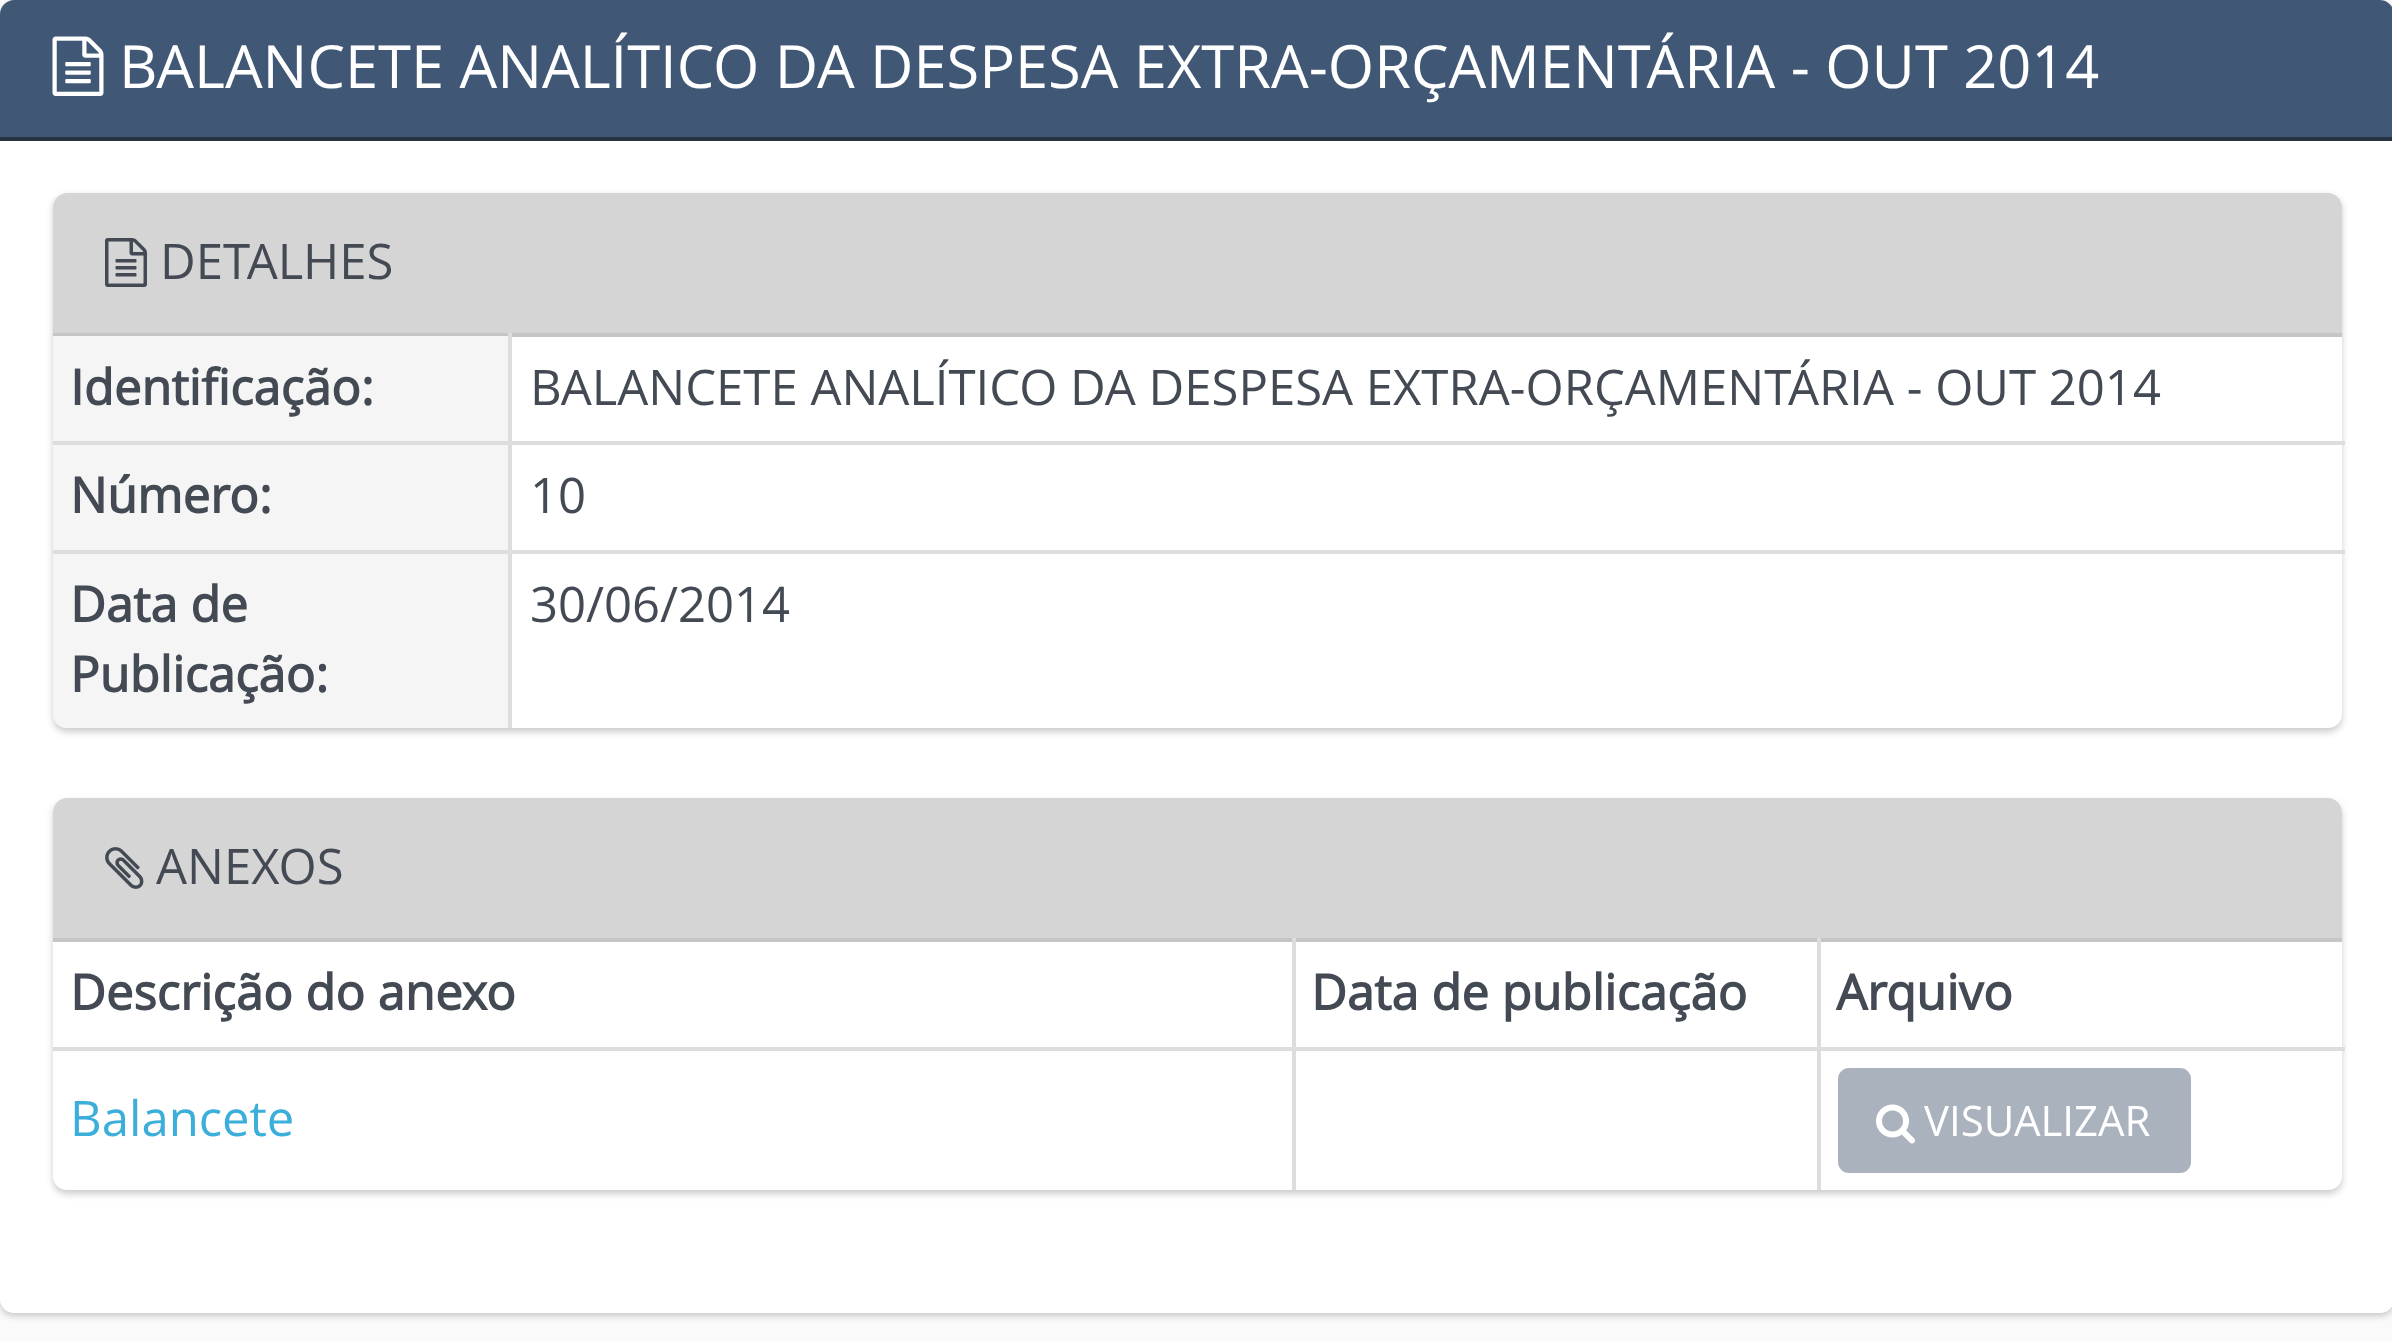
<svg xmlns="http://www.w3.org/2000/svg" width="2392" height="1341">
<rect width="100%" height="100%" fill="#fafafa"/>
<rect y="4" width="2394" height="1312" rx="14" fill="#00000033" filter="blur(3.5px)"/>
<rect width="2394" height="1313" rx="14" fill="#fff"/>
<path d="M14 0h2366c7.5 0 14 6.5 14 14v126h-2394v-126c0-7.5 6.5-14 14-14z" fill="#405875"/>
<rect y="137" width="2392" height="4" fill="#243242"/>
<image x="52" y="36" width="52" height="60" href="media/1.png"/>
<text x="119" y="88" style="font-family:Open Sans;font-size:59.5px;fill:#fff">BALANCETE ANALÍTICO DA DESPESA EXTRA-ORÇAMENTÁRIA - OUT 2014</text>
<rect x="53" y="196" width="2289" height="536" rx="14" fill="#00000033" filter="blur(3.5px)"/>
<rect x="53" y="193" width="2289" height="535" rx="14" fill="#fff"/>
<path d="M67 193h2261c7.5 0 14 6.5 14 14v129h-2289v-129c0-7.5 6.5-14 14-14z" fill="#d5d5d5"/>
<rect x="53" y="333" width="2289" height="4" fill="#c5c5c5"/>
<image x="105" y="238" width="42" height="49" href="media/2.png"/>
<text x="160" y="279" style="font-family:Open Sans;font-size:49px;fill:#434a54">DETALHES</text>
<rect x="53" y="336" width="455" height="105" fill="#f5f5f5"/>
<text x="70" y="405" style="font-family:Open Sans;font-size:49px;font-weight:bold;fill:#434a54">Identificação:</text>
<rect x="508" y="441" width="1837" height="4" fill="#ddd"/>
<path d="M53 550h458v178h-444c-7.5 0-14-6.5-14-14z" fill="#f5f5f5"/>
<rect x="508" y="550" width="1837" height="4" fill="#ddd"/>
<rect x="508" y="550" width="4" height="178" fill="#ddd"/>
<rect x="53" y="550" width="458" height="4" fill="#ddd"/>
<rect x="508" y="441" width="4" height="112" fill="#ddd"/>
<rect x="53" y="441" width="458" height="4" fill="#ddd"/>
<rect x="508" y="333" width="4" height="112" fill="#ddd"/>
<text x="530" y="405" style="font-family:Open Sans;font-size:49px;fill:#434a54">BALANCETE ANALÍTICO DA DESPESA EXTRA-ORÇAMENTÁRIA - OUT 2014</text>
<rect x="53" y="445" width="455" height="105" fill="#f5f5f5"/>
<text x="70" y="513" style="font-family:Open Sans;font-size:49px;font-weight:bold;fill:#434a54">Número:</text>
<text x="530" y="513" style="font-family:Open Sans;font-size:49px;fill:#434a54">10</text>
<text x="70" y="622" style="font-family:Open Sans;font-size:49px;font-weight:bold;fill:#434a54">Data de</text>
<text x="70" y="692" style="font-family:Open Sans;font-size:49px;font-weight:bold;fill:#434a54">Publicação:</text>
<text x="530" y="622" style="font-family:Open Sans;font-size:49px;fill:#434a54">30/06/2014</text>
<rect x="53" y="802" width="2289" height="392" rx="14" fill="#00000033" filter="blur(3.5px)"/>
<rect x="53" y="798" width="2289" height="392" rx="14" fill="#fff"/>
<path d="M67 798h2261c7.5 0 14 6.5 14 14v130h-2289v-130c0-7.5 6.5-14 14-14z" fill="#d5d5d5"/>
<rect x="53" y="938" width="2289" height="4" fill="#c5c5c5"/>
<image x="105" y="847" width="39" height="42" href="media/3.png"/>
<text x="156" y="884" style="font-family:Open Sans;font-size:49px;fill:#434a54">ANEXOS</text>
<text x="70" y="1010" style="font-family:Open Sans;font-size:49px;font-weight:bold;fill:#434a54">Descrição do anexo</text>
<rect x="1817" y="1047" width="528" height="4" fill="#ddd"/>
<rect x="1817" y="1047" width="4" height="143" fill="#ddd"/>
<rect x="1292" y="1047" width="528" height="4" fill="#ddd"/>
<rect x="1292" y="1047" width="4" height="143" fill="#ddd"/>
<rect x="53" y="1047" width="1242" height="4" fill="#ddd"/>
<rect x="1292" y="938" width="4" height="112" fill="#ddd"/>
<text x="1311" y="1010" style="font-family:Open Sans;font-size:49px;font-weight:bold;fill:#434a54">Data de publicação</text>
<rect x="1817" y="938" width="4" height="112" fill="#ddd"/>
<text x="1836" y="1010" style="font-family:Open Sans;font-size:49px;font-weight:bold;fill:#434a54">Arquivo</text>
<text x="70" y="1136" style="font-family:Open Sans;font-size:49px;fill:#3bafda">Balancete</text>
<rect x="1840" y="1070" width="349" height="101" rx="9" fill="#aab2bd" stroke="#aab2bd" stroke-width="4"/>
<image x="1876" y="1104" width="39" height="40" href="media/4.png"/>
<text x="1924" y="1136" style="font-family:Open Sans;font-size:42px;fill:#fff">VISUALIZAR</text>
</svg>
